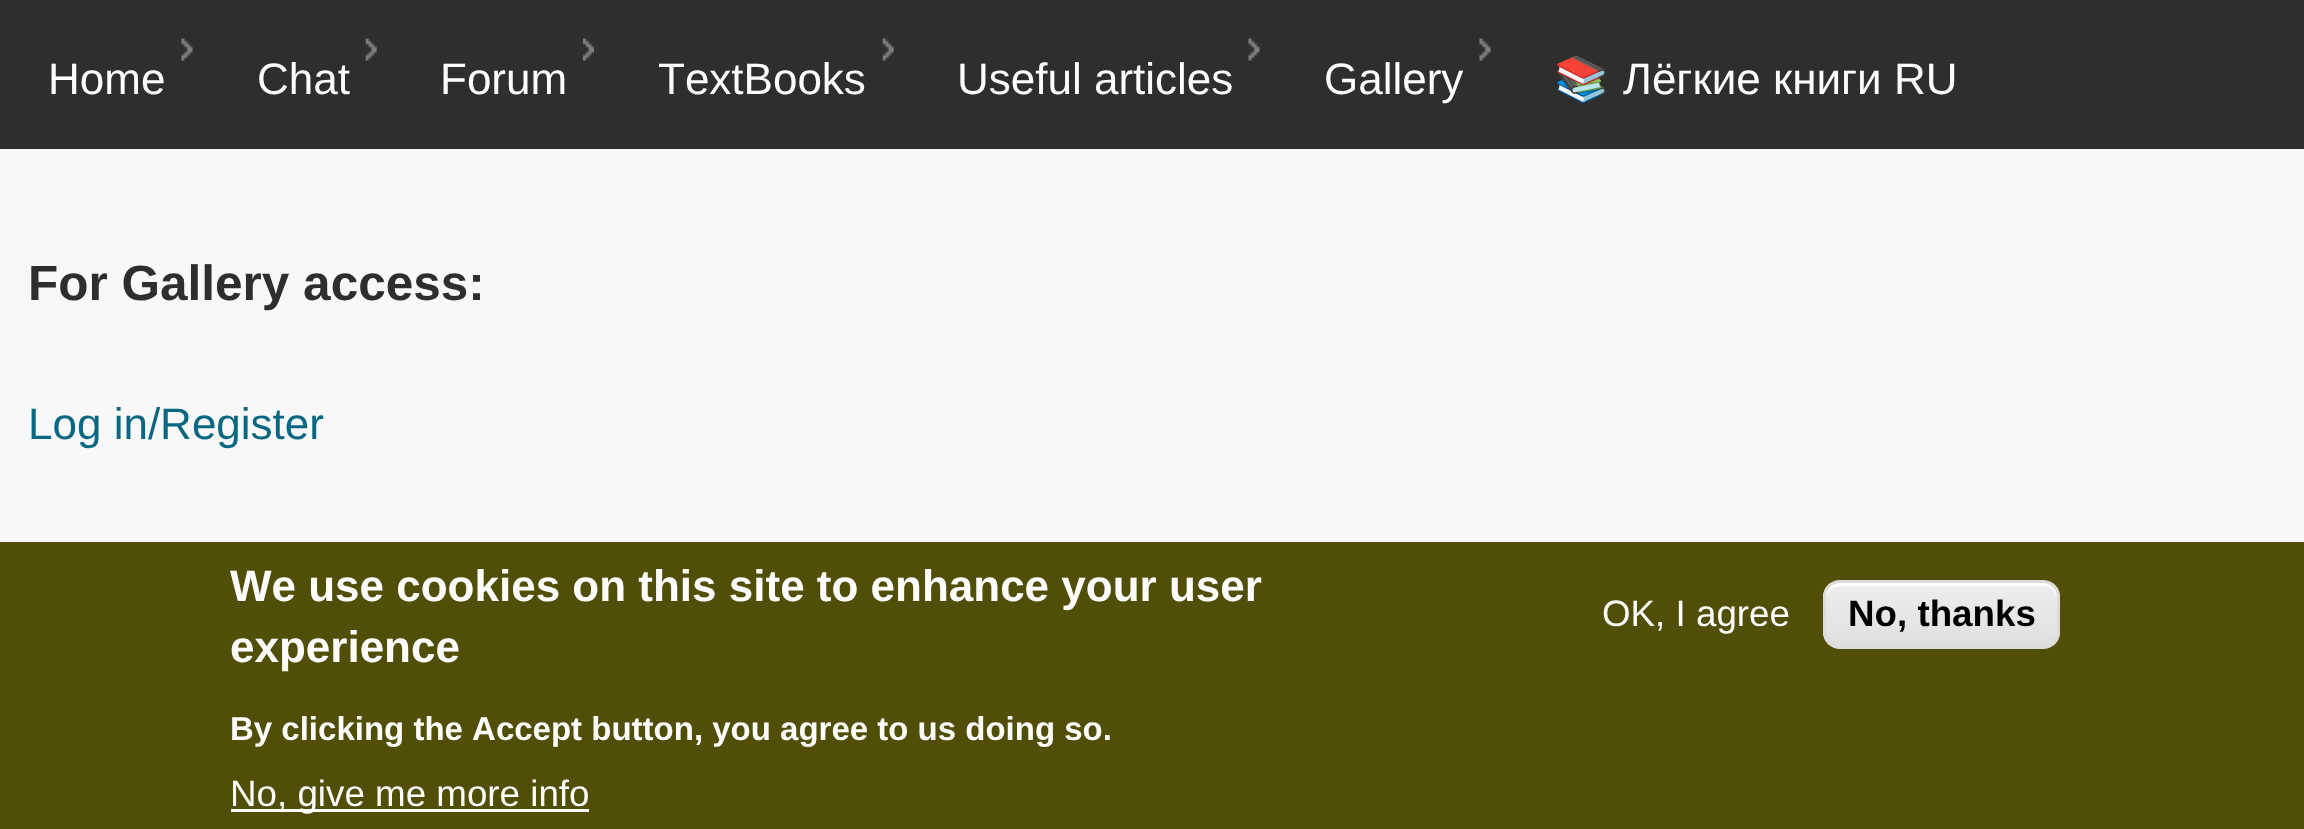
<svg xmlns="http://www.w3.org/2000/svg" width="2304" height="829">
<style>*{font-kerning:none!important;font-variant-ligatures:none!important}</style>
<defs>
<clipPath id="clip1"><rect x="1823" y="580" width="237" height="69" rx="17"/></clipPath>
<linearGradient id="g1" gradientUnits="userSpaceOnUse" x1="1942" y1="583" x2="1942" y2="646"><stop offset="0.05" stop-color="#ededed"/><stop offset="1" stop-color="#dfdfdf"/></linearGradient>
</defs>
<rect width="100%" height="100%" fill="#f8f8f8"/>
<rect width="2304" height="149" fill="#2e2e2d"/>
<text x="48" y="94" style="font-family:Liberation Sans;font-size:44px;fill:#fcfcfc">Home</text>
<image x="181" y="38" width="12" height="23" href="media/1.png"/>
<text x="257" y="94" style="font-family:Liberation Sans;font-size:44px;fill:#fcfcfc">Chat</text>
<image x="365" y="38" width="12" height="23" href="media/2.png"/>
<text x="440" y="94" style="font-family:Liberation Sans;font-size:44px;fill:#fcfcfc">Forum</text>
<image x="583" y="38" width="11" height="23" href="media/3.png"/>
<text x="658" y="94" style="font-family:Liberation Sans;font-size:44px;fill:#fcfcfc">TextBooks</text>
<image x="882" y="38" width="12" height="23" href="media/2.png"/>
<text x="957" y="94" style="font-family:Liberation Sans;font-size:44px;fill:#fcfcfc">Useful articles</text>
<image x="1248" y="38" width="12" height="23" href="media/1.png"/>
<text x="1324" y="94" style="font-family:Liberation Sans;font-size:44px;fill:#fcfcfc">Gallery</text>
<image x="1479" y="38" width="12" height="23" href="media/1.png"/>
<text x="1554" y="94" style="font-family:Noto Color Emoji;font-size:44px;fill:#ffeb3b">📚</text>
<text x="1623" y="94" style="font-family:Liberation Sans;font-size:44px;fill:#fcfcfc">Лёгкие книги RU</text>
<text x="28" y="300" style="font-family:Liberation Sans;font-size:49.5px;font-weight:bold;fill:#2e2e2e">For Gallery access:</text>
<text x="28" y="439" style="font-family:Liberation Sans;font-size:44px;fill:#086782">Log in/Register</text>
<rect y="542" width="2304" height="287" fill="#514e07"/>
<text x="230" y="601" style="font-family:Liberation Sans;font-size:44px;font-weight:bold;fill:#fcfcfc">We use cookies on this site to enhance your user</text>
<text x="230" y="662" style="font-family:Liberation Sans;font-size:44px;font-weight:bold;fill:#fcfcfc">experience</text>
<text x="230" y="740" style="font-family:Liberation Sans;font-size:33px;font-weight:bold;fill:#fcfcfc">By clicking the Accept button, you agree to us doing so.</text>
<rect x="231" y="809" width="358" height="3" fill="#fff"/>
<text x="230" y="806" style="font-family:Liberation Sans;font-size:36.75px;fill:#fcfcfc">No, give me more info</text>
<text x="1602" y="626" style="font-family:Liberation Sans;font-size:36.75px;fill:#fcfcfc">OK, I agree</text>
<g clip-path="url(#clip1)">
<rect x="1823" y="583" width="237" height="63" fill="url(#g1)"/>
</g>
<path d="M1840 586h203c8 0 14 6 14 14v-3c0-8-6-14-14-14h-203c-8 0-14 6-14 14v3c0-8 6-14 14-14z" fill="#fff"/>
<rect x="1824.5" y="581.5" width="234" height="66" rx="15.5" fill="none" stroke="#dcdcdc" stroke-width="3"/>
<text x="1848" y="626" style="font-family:Liberation Sans;font-size:36.75px;font-weight:bold;fill:#000">No, thanks</text>
</svg>
